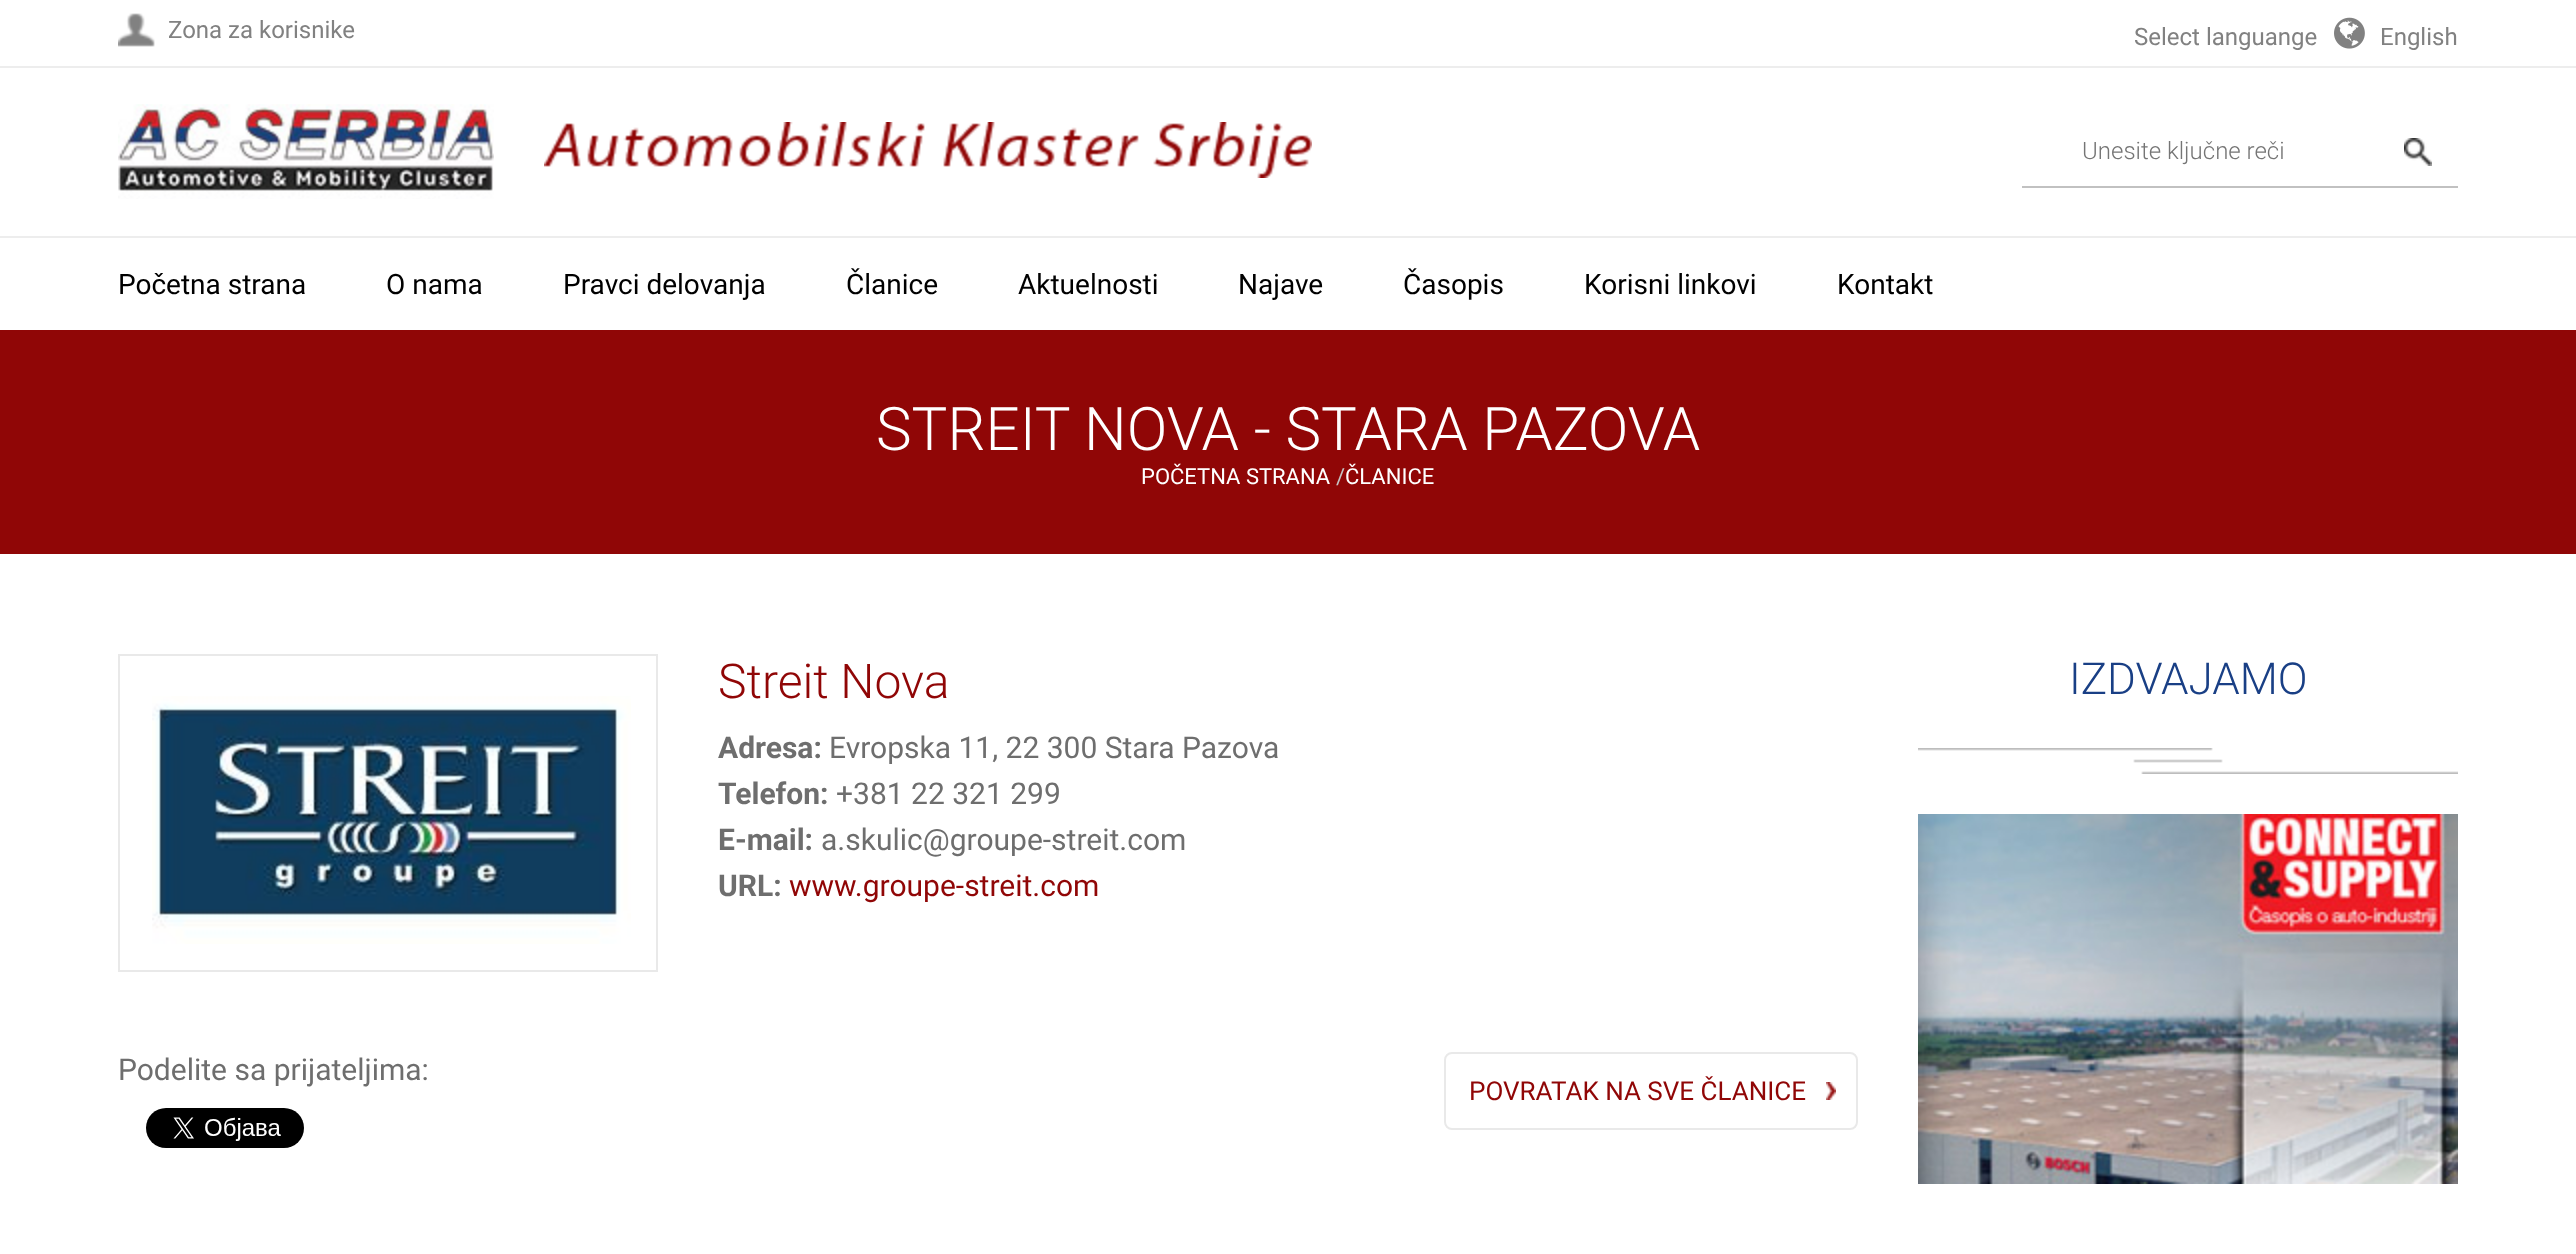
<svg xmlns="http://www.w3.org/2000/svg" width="2576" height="1254">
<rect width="100%" height="100%" fill="#fff"/>
<rect y="66" width="2576" height="2" fill="#ededed"/>
<image x="118" y="13" width="37" height="34" href="media/1.png"/>
<text x="168" y="38" style="font-family:Roboto;font-size:24px;fill:#818181">Zona za korisnike</text>
<text x="2134" y="45" style="font-family:Roboto;font-size:24px;fill:#818181">Select languange</text>
<image x="2334" y="17" width="31" height="32" href="media/2.png"/>
<text x="2380" y="45" style="font-family:Roboto;font-size:24px;fill:#818181">English</text>
<image x="118" y="104" width="376" height="95" href="media/3.png"/>
<image x="544" y="122" width="768" height="56" href="media/4.png"/>
<rect x="2022" y="186" width="436" height="2" fill="#c1c1c1"/>
<text x="2082" y="159" style="font-family:Roboto;font-size:24px;font-weight:300;fill:#757575">Unesite ključne reči</text>
<image x="2404" y="138" width="28" height="28" href="media/5.png"/>
<rect y="236" width="2576" height="2" fill="#ededed"/>
<text x="118" y="294" style="font-family:Roboto;font-size:28px;fill:#000">Početna strana</text>
<text x="386" y="294" style="font-family:Roboto;font-size:28px;fill:#000">O nama</text>
<text x="563" y="294" style="font-family:Roboto;font-size:28px;fill:#000">Pravci delovanja</text>
<text x="846" y="294" style="font-family:Roboto;font-size:28px;fill:#000">Članice</text>
<text x="1018" y="294" style="font-family:Roboto;font-size:28px;fill:#000">Aktuelnosti</text>
<text x="1238" y="294" style="font-family:Roboto;font-size:28px;fill:#000">Najave</text>
<text x="1403" y="294" style="font-family:Roboto;font-size:28px;fill:#000">Časopis</text>
<text x="1584" y="294" style="font-family:Roboto;font-size:28px;fill:#000">Korisni linkovi</text>
<text x="1837" y="294" style="font-family:Roboto;font-size:28px;fill:#000">Kontakt</text>
<rect y="330" width="2576" height="224" fill="#900606"/>
<text x="876" y="450" style="font-family:Roboto;font-size:60px;font-weight:300;fill:#fff">STREIT NOVA - STARA PAZOVA</text>
<text x="1141" y="484" style="font-family:Roboto;font-size:22px;fill:#fff">POČETNA STRANA</text>
<text x="1336" y="484" style="font-family:Roboto;font-size:22px;fill:#c5c5c5">/</text>
<text x="1345" y="484" style="font-family:Roboto;font-size:22px;fill:#fff">ČLANICE</text>
<rect x="119" y="655" width="538" height="316" fill="none" stroke="#e9e9e9" stroke-width="2"/>
<image x="152" y="696" width="479" height="248" href="media/6.png"/>
<text x="718" y="698" style="font-family:Roboto;font-size:48px;font-weight:300;fill:#900606">Streit Nova</text>
<text x="718" y="758" style="font-family:Roboto;font-size:30px;font-weight:bold;fill:#6e6e6e">Adresa:</text>
<text x="829" y="758" style="font-family:Roboto;font-size:30px;fill:#6e6e6e">Evropska 11, 22 300 Stara Pazova</text>
<text x="718" y="804" style="font-family:Roboto;font-size:30px;font-weight:bold;fill:#6e6e6e">Telefon:</text>
<text x="836" y="804" style="font-family:Roboto;font-size:30px;fill:#6e6e6e">+381 22 321 299</text>
<text x="718" y="850" style="font-family:Roboto;font-size:30px;font-weight:bold;fill:#6e6e6e">E-mail:</text>
<text x="821" y="850" style="font-family:Roboto;font-size:30px;fill:#6e6e6e">a.skulic@groupe-streit.com</text>
<text x="718" y="896" style="font-family:Roboto;font-size:30px;font-weight:bold;fill:#6e6e6e">URL:</text>
<text x="789" y="896" style="font-family:Roboto;font-size:30px;fill:#900606">www.groupe-streit.com</text>
<text x="118" y="1080" style="font-family:Roboto;font-size:30px;fill:#6e6e6e">Podelite sa prijateljima:</text>
<image x="146" y="1108" width="158" height="40" href="media/7.png"/>
<image x="1826" y="1082" width="10" height="18" href="media/8.png"/>
<rect x="1445" y="1053" width="412" height="76" rx="7" fill="none" stroke="#e9e9e9" stroke-width="2"/>
<text x="1469" y="1100" style="font-family:Roboto;font-size:26px;fill:#900606">POVRATAK NA SVE ČLANICE</text>
<image x="1918" y="748" width="540" height="26" href="media/9.png"/>
<text x="2069" y="694" style="font-family:Roboto;font-size:44px;font-weight:300;fill:#193f85">IZDVAJAMO</text>
<image x="1918" y="814" width="540" height="370" href="media/10.png"/>
</svg>
